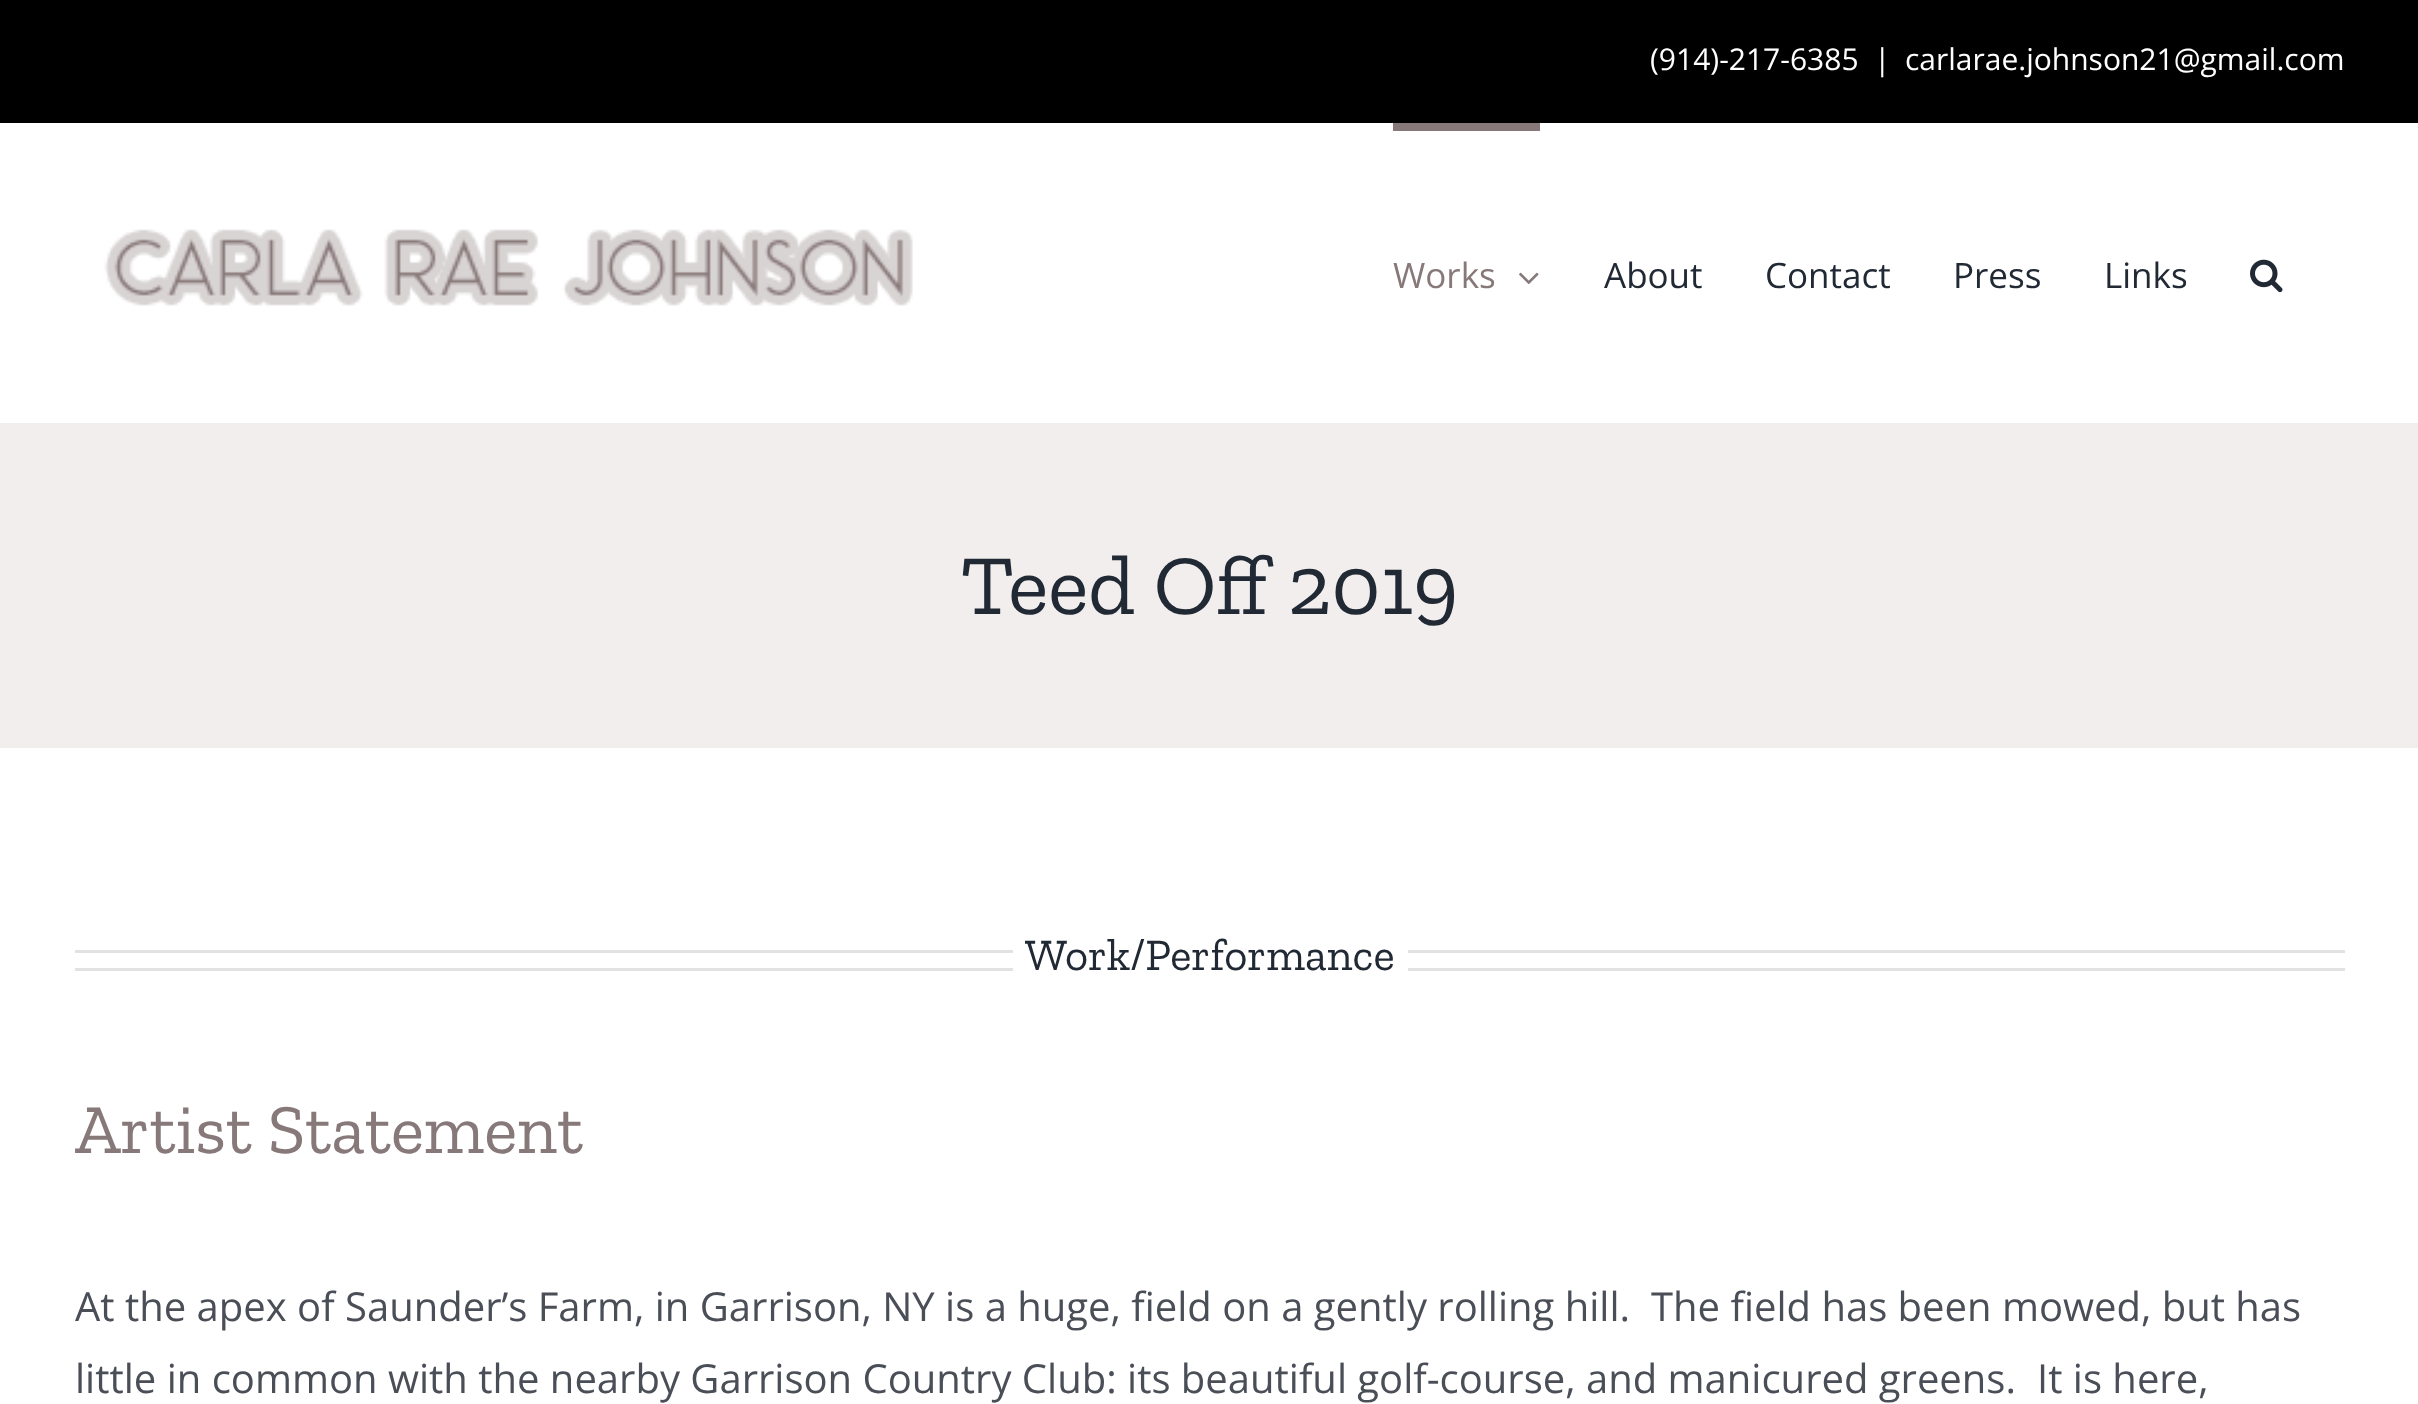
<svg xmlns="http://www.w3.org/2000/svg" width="2418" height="1404">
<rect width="100%" height="100%" fill="#fff"/>
<rect width="2418" height="123" fill="#000"/>
<text x="1650" y="70" style="font-family:Open Sans;font-size:30px;fill:#fff">(914)-217-6385</text>
<text x="1874" y="70" style="font-family:Open Sans;font-size:30px;fill:#fff">|</text>
<text x="1905" y="70" style="font-family:Open Sans;font-size:30px;fill:#fff">carlarae.johnson21@gmail.com</text>
<image x="104" y="229" width="809" height="77" href="media/1.png"/>
<rect x="1393" y="123" width="147" height="8" fill="#877979"/>
<text x="1393" y="288" style="font-family:Open Sans;font-size:35px;fill:#877979">Works</text>
<image x="1519" y="272" width="20" height="13" href="media/2.png"/>
<text x="1604" y="288" style="font-family:Open Sans;font-size:35px;fill:#212934">About</text>
<text x="1765" y="288" style="font-family:Open Sans;font-size:35px;fill:#212934">Contact</text>
<text x="1953" y="288" style="font-family:Open Sans;font-size:35px;fill:#212934">Press</text>
<text x="2104" y="288" style="font-family:Open Sans;font-size:35px;fill:#212934">Links</text>
<image x="2250" y="259" width="33" height="34" href="media/3.png"/>
<rect y="423" width="2418" height="325" fill="#f2eeee"/>
<text x="961" y="614" style="font-family:Zilla Slab;font-size:85px;fill:#212934">Teed Off 2019</text>
<rect x="75" y="950" width="938" height="3" fill="#e2e2e2"/>
<rect x="75" y="968" width="938" height="3" fill="#e2e2e2"/>
<text x="1025" y="970" style="font-family:Zilla Slab;font-size:45px;fill:#212934">Work/Performance</text>
<rect x="1408" y="950" width="937" height="3" fill="#e2e2e2"/>
<rect x="1408" y="968" width="937" height="3" fill="#e2e2e2"/>
<text x="75" y="1153" style="font-family:Zilla Slab;font-size:70px;fill:#877979">Artist Statement</text>
<text x="75" y="1321" style="font-family:Open Sans;font-size:40px;fill:#4a4e57">At the apex of Saunder’s Farm, in Garrison, NY is a huge, field on a gently rolling hill.</text>
<text x="1651" y="1321" style="font-family:Open Sans;font-size:40px;fill:#4a4e57">The field has been mowed, but has</text>
<text x="75" y="1393" style="font-family:Open Sans;font-size:40px;fill:#4a4e57">little in common with the nearby Garrison Country Club: its beautiful golf-course, and manicured greens.</text>
<text x="2037" y="1393" style="font-family:Open Sans;font-size:40px;fill:#4a4e57">It is here,</text>
</svg>
